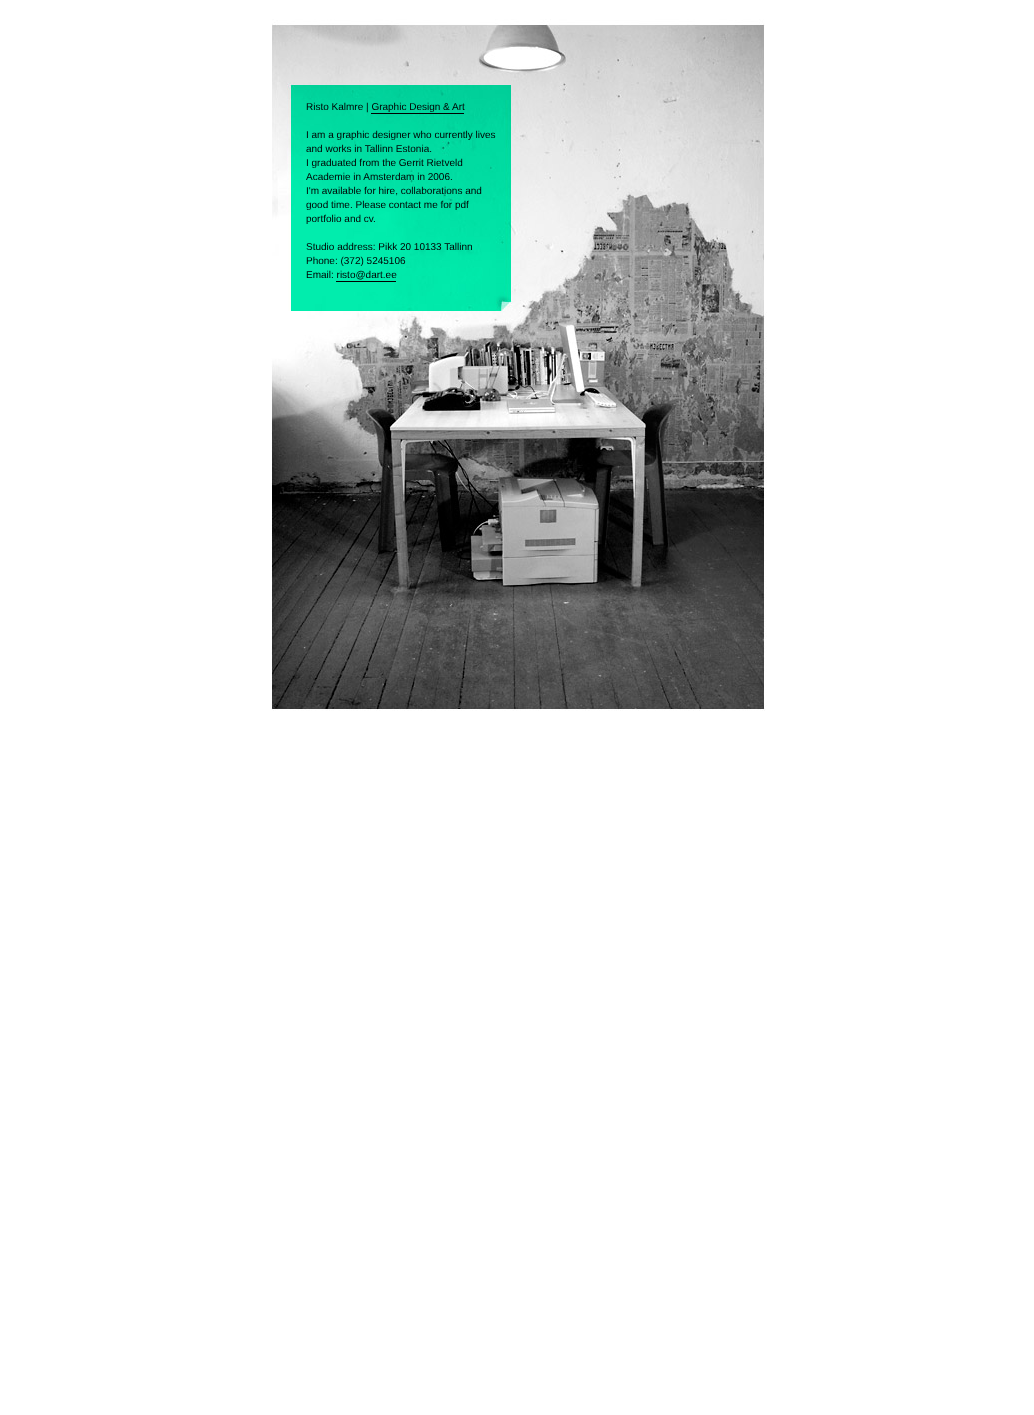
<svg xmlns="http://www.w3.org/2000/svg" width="1034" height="1415">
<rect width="100%" height="100%" fill="#fff"/>
<image x="272" y="19" width="493" height="81" href="media/1.png"/>
<image x="272" y="100" width="34" height="211" href="media/2.png"/>
<image x="306" y="100" width="190" height="196" href="media/3.png"/>
<text x="306" y="110" style="font-family:Liberation Sans;font-size:10px;fill:#000">Risto Kalmre | Graphic Design &amp; Art</text>
<rect x="371" y="113" width="93" height="1" fill="#000"/>
<text x="306" y="138" style="font-family:Liberation Sans;font-size:10px;fill:#000">I am a graphic designer who currently lives</text>
<text x="306" y="152" style="font-family:Liberation Sans;font-size:10px;fill:#000">and works in Tallinn Estonia.</text>
<text x="306" y="166" style="font-family:Liberation Sans;font-size:10px;fill:#000">I graduated from the Gerrit Rietveld</text>
<text x="306" y="180" style="font-family:Liberation Sans;font-size:10px;fill:#000">Academie in Amsterdam in 2006.</text>
<text x="306" y="194" style="font-family:Liberation Sans;font-size:10px;fill:#000">I'm available for hire, collaborations and</text>
<text x="306" y="208" style="font-family:Liberation Sans;font-size:10px;fill:#000">good time. Please contact me for pdf</text>
<text x="306" y="222" style="font-family:Liberation Sans;font-size:10px;fill:#000">portfolio and cv.</text>
<text x="306" y="250" style="font-family:Liberation Sans;font-size:10px;fill:#000">Studio address: Pikk 20 10133 Tallinn</text>
<text x="306" y="264" style="font-family:Liberation Sans;font-size:10px;fill:#000">Phone: (372) 5245106</text>
<text x="306" y="278" style="font-family:Liberation Sans;font-size:10px;fill:#000">Email: risto@dart.ee</text>
<rect x="336" y="281" width="60" height="1" fill="#000"/>
<image x="496" y="100" width="268" height="211" href="media/4.png"/>
<image x="306" y="296" width="190" height="15" href="media/5.png"/>
<image x="271" y="311" width="496" height="400" href="media/6.png"/>
</svg>
